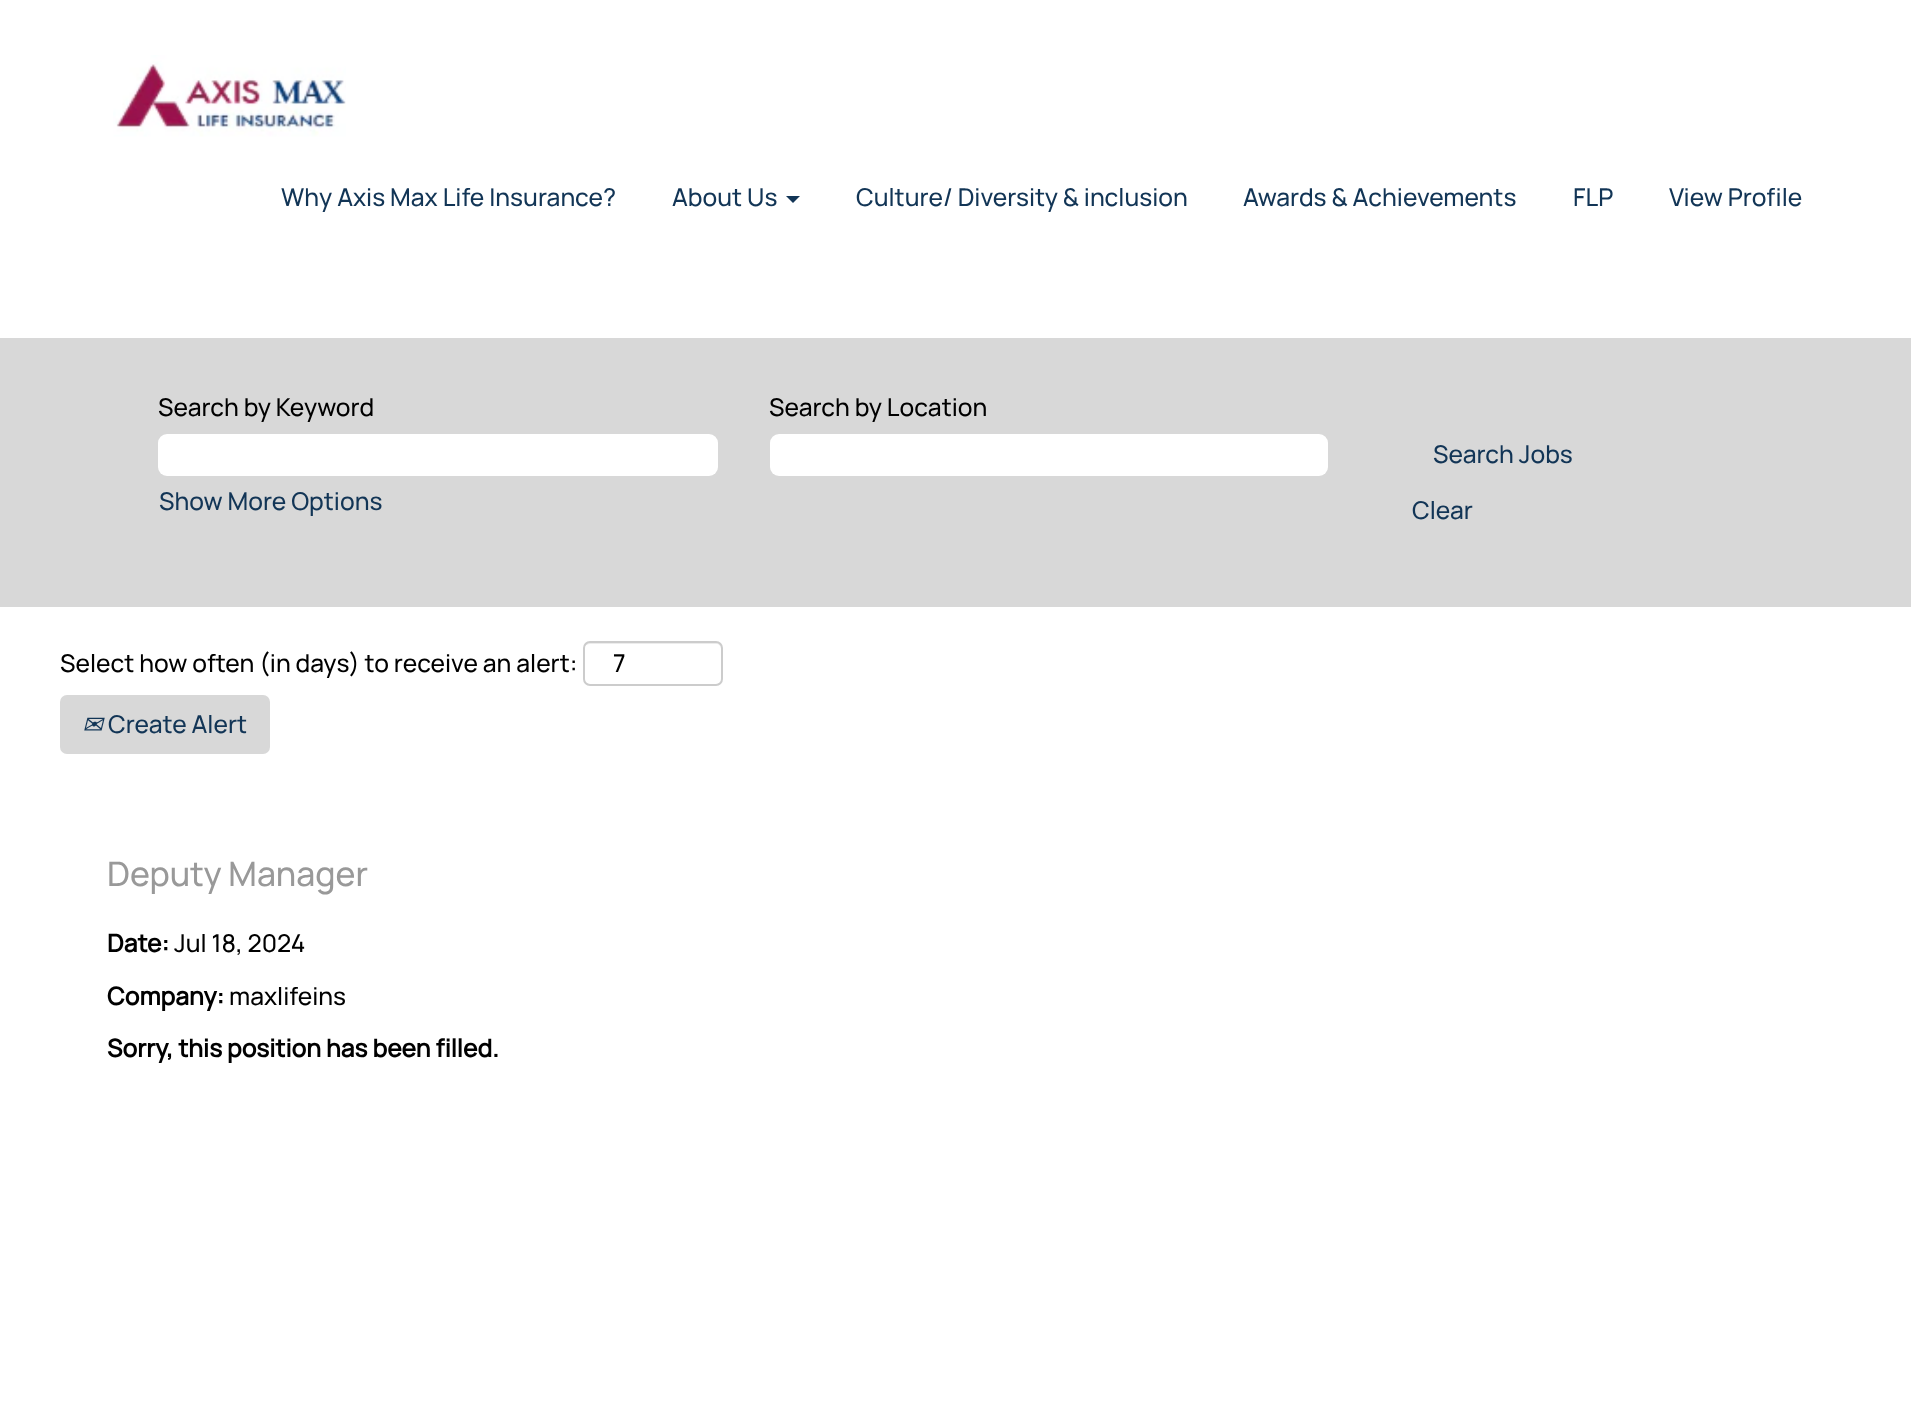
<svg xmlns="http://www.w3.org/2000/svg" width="1911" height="1421">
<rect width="100%" height="100%" fill="#fff"/>
<image x="113" y="55" width="233" height="82" href="media/1.png"/>
<text x="281" y="206" style="font-family:Manrope;font-size:24.5px;font-weight:500;fill:#123556">Why Axis Max Life Insurance?</text>
<text x="672" y="206" style="font-family:Manrope;font-size:24.5px;font-weight:500;fill:#123556">About Us</text>
<path d="M786 196h14l-7 7z" fill="#123556"/>
<text x="856" y="206" style="font-family:Manrope;font-size:24.5px;font-weight:500;fill:#123556">Culture/ Diversity &amp; inclusion</text>
<text x="1243" y="206" style="font-family:Manrope;font-size:24.5px;font-weight:500;fill:#123556">Awards &amp; Achievements</text>
<text x="1573" y="206" style="font-family:Manrope;font-size:24.5px;font-weight:500;fill:#123556">FLP</text>
<text x="1669" y="206" style="font-family:Manrope;font-size:24.5px;font-weight:500;fill:#123556">View Profile</text>
<rect y="338" width="1911" height="269" fill="#d8d8d8"/>
<text x="158" y="416" style="font-family:Manrope;font-size:24.5px;font-weight:500;fill:#000">Search by Keyword</text>
<rect x="158" y="434" width="560" height="42" rx="9" fill="#fff"/>
<text x="769" y="416" style="font-family:Manrope;font-size:24.5px;font-weight:500;fill:#000">Search by Location</text>
<rect x="770" y="434" width="558" height="42" rx="9" fill="#fff"/>
<text x="159" y="510" style="font-family:Manrope;font-size:24.5px;font-weight:500;fill:#123556">Show More Options</text>
<text x="1433" y="463" style="font-family:Manrope;font-size:24.5px;font-weight:500;fill:#123556">Search Jobs</text>
<text x="1412" y="519" style="font-family:Manrope;font-size:24.5px;font-weight:500;fill:#123556">Clear</text>
<text x="60" y="672" style="font-family:Manrope;font-size:24.5px;font-weight:500;fill:#000">Select how often (in days) to receive an alert:</text>
<path d="M590 644h126c3 0 5 2 5 5v-2c0-3-2-5-5-5h-126c-2 0-5 2-5 4c1-1 3-2 5-2z" fill="#ececec"/>
<rect x="584" y="642" width="138" height="43" rx="6" fill="none" stroke="#ccc" stroke-width="2"/>
<text x="613" y="672" style="font-family:Manrope;font-size:24.5px;font-weight:500;fill:#000">7</text>
<rect x="60" y="695" width="210" height="59" rx="7" fill="#d8d8d8"/>
<text x="82" y="733" style="font-family:DejaVu Sans;font-size:24.5px;font-style:italic;fill:#123556">✉</text>
<text x="108" y="733" style="font-family:Manrope;font-size:24.5px;font-weight:500;fill:#123556">Create Alert</text>
<text x="107" y="886" style="font-family:Manrope;font-size:33.75px;font-weight:500;fill:#999">Deputy Manager</text>
<text x="107" y="952" style="font-family:Manrope;font-size:24.5px;font-weight:bold;fill:#000">Date:</text>
<text x="174" y="952" style="font-family:Manrope;font-size:24.5px;font-weight:500;fill:#000">Jul 18, 2024</text>
<text x="107" y="1005" style="font-family:Manrope;font-size:24.5px;font-weight:bold;fill:#000">Company:</text>
<text x="229" y="1005" style="font-family:Manrope;font-size:24.5px;font-weight:500;fill:#000">maxlifeins</text>
<text x="107" y="1057" style="font-family:Manrope;font-size:24.5px;font-weight:bold;fill:#000">Sorry, this position has been filled.</text>
</svg>
